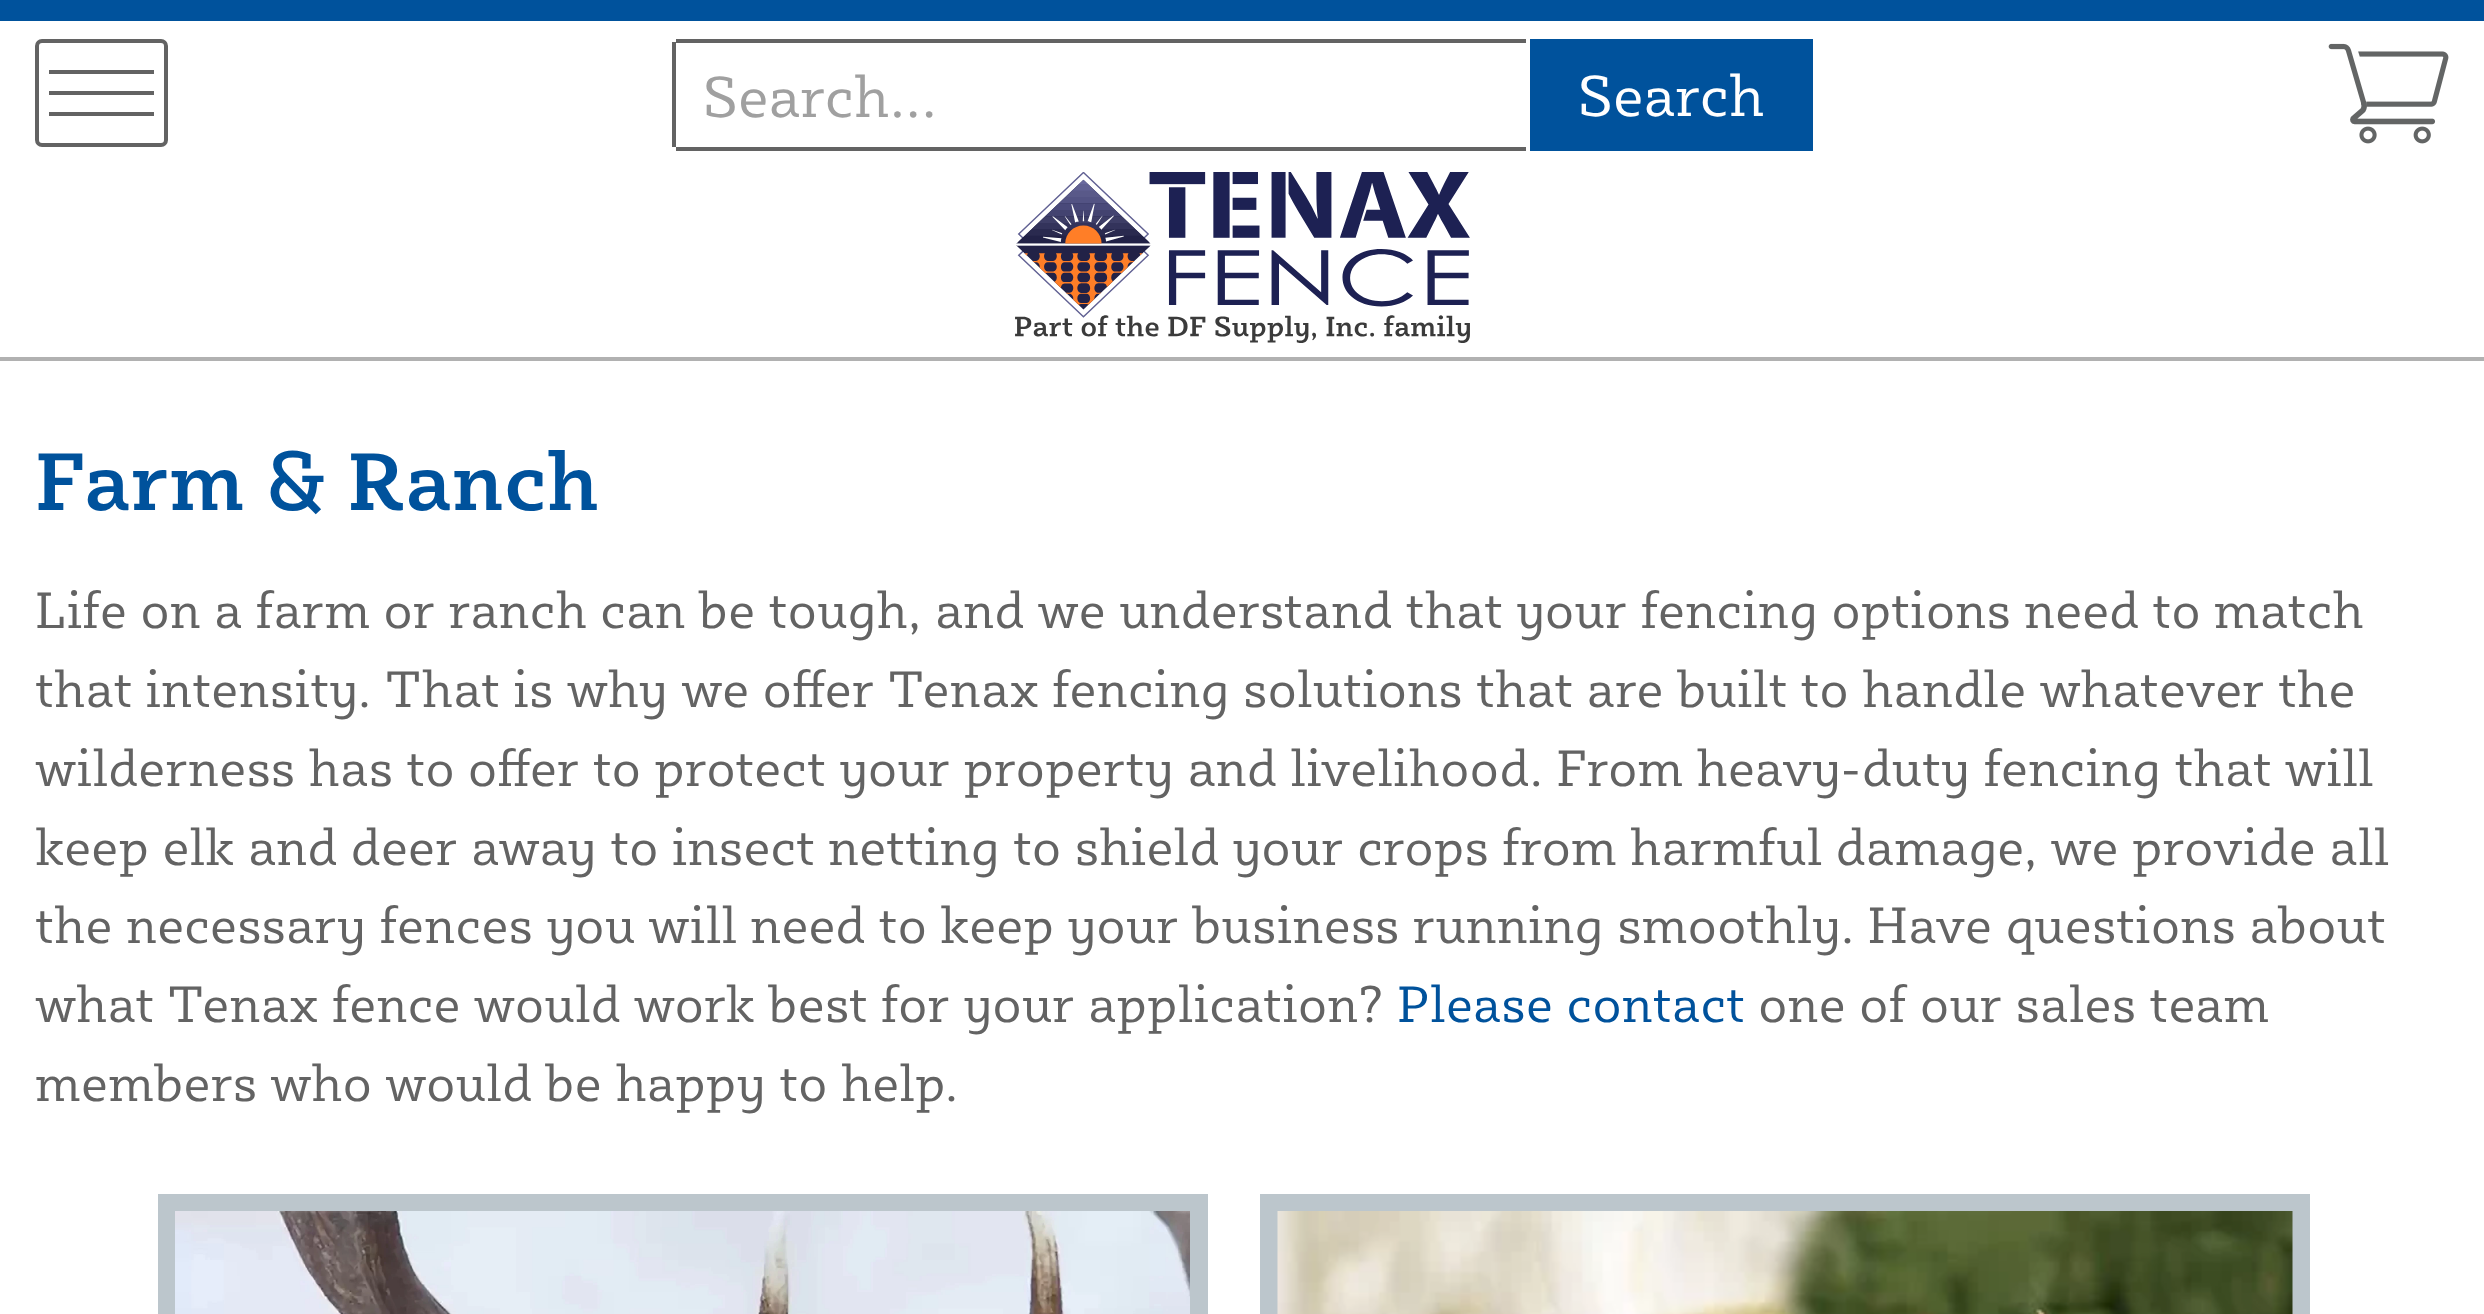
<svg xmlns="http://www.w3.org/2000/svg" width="2484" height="1314">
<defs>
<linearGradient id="g1" gradientUnits="userSpaceOnUse" x1="1020" y1="307" x2="1755" y2="-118"><stop offset="0" stop-color="#00529c"/><stop offset="0.13" stop-color="#00529c"/><stop offset="0.2" stop-color="#007ce8"/><stop offset="0.27" stop-color="#00529c"/><stop offset="1" stop-color="#00529c"/></linearGradient>
</defs>
<rect width="100%" height="100%" fill="#fff"/>
<rect width="2484" height="21" fill="#00529c"/>
<rect y="357" width="2484" height="4" fill="#b1b1b1"/>
<rect x="37" y="41" width="129" height="104" rx="5" fill="none" stroke="#636363" stroke-width="4"/>
<rect x="49" y="70" width="105" height="4" fill="#636363"/>
<rect x="49" y="91" width="105" height="4" fill="#636363"/>
<rect x="49" y="112" width="105" height="4" fill="#636363"/>
<rect x="676" y="39" width="850" height="4" fill="#636363"/>
<rect x="676" y="147" width="850" height="4" fill="#636363"/>
<rect x="672" y="42" width="4" height="105" fill="#636363"/>
<text x="703" y="117" style="font-family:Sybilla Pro;font-size:59.5px;fill:#a0a0a0">Search...</text>
<rect x="1530" y="39" width="283" height="112" fill="url(#g1)"/>
<text x="1578" y="116" style="font-family:Sybilla Pro;font-size:59.5px;fill:#fff">Search</text>
<image x="2328" y="43" width="121" height="101" href="media/1.png"/>
<image x="1015" y="172" width="455" height="171" href="media/2.png"/>
<text x="35" y="510" style="font-family:Sybilla Pro;font-size:84px;font-weight:500;fill:#00529c">Farm &amp; Ranch</text>
<text x="35" y="628" style="font-family:Sybilla Pro;font-size:52.5px;fill:#636363">Life on a farm or ranch can be tough, and we understand that your fencing options need to match</text>
<text x="35" y="707" style="font-family:Sybilla Pro;font-size:52.5px;fill:#636363">that intensity. That is why we offer Tenax fencing solutions that are built to handle whatever the</text>
<text x="35" y="786" style="font-family:Sybilla Pro;font-size:52.5px;fill:#636363">wilderness has to offer to protect your property and livelihood. From heavy-duty fencing that will</text>
<text x="35" y="865" style="font-family:Sybilla Pro;font-size:52.5px;fill:#636363">keep elk and deer away to insect netting to shield your crops from harmful damage, we provide all</text>
<text x="35" y="943" style="font-family:Sybilla Pro;font-size:52.5px;fill:#636363">the necessary fences you will need to keep your business running smoothly. Have questions about</text>
<text x="35" y="1022" style="font-family:Sybilla Pro;font-size:52.5px;fill:#636363">what Tenax fence would work best for your application?</text>
<text x="1397" y="1022" style="font-family:Sybilla Pro;font-size:52.5px;fill:#00529c">Please contact</text>
<text x="1758" y="1022" style="font-family:Sybilla Pro;font-size:52.5px;fill:#636363">one of our sales team</text>
<text x="35" y="1101" style="font-family:Sybilla Pro;font-size:52.5px;fill:#636363">members who would be happy to help.</text>
<rect x="167" y="1203" width="1032" height="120" fill="none" stroke="#bcc6cc" stroke-width="18"/>
<image x="175" y="1211" width="1015" height="103" href="media/3.png"/>
<rect x="1269" y="1203" width="1032" height="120" fill="none" stroke="#bcc6cc" stroke-width="18"/>
<image x="1277" y="1211" width="1016" height="103" href="media/4.png"/>
</svg>
